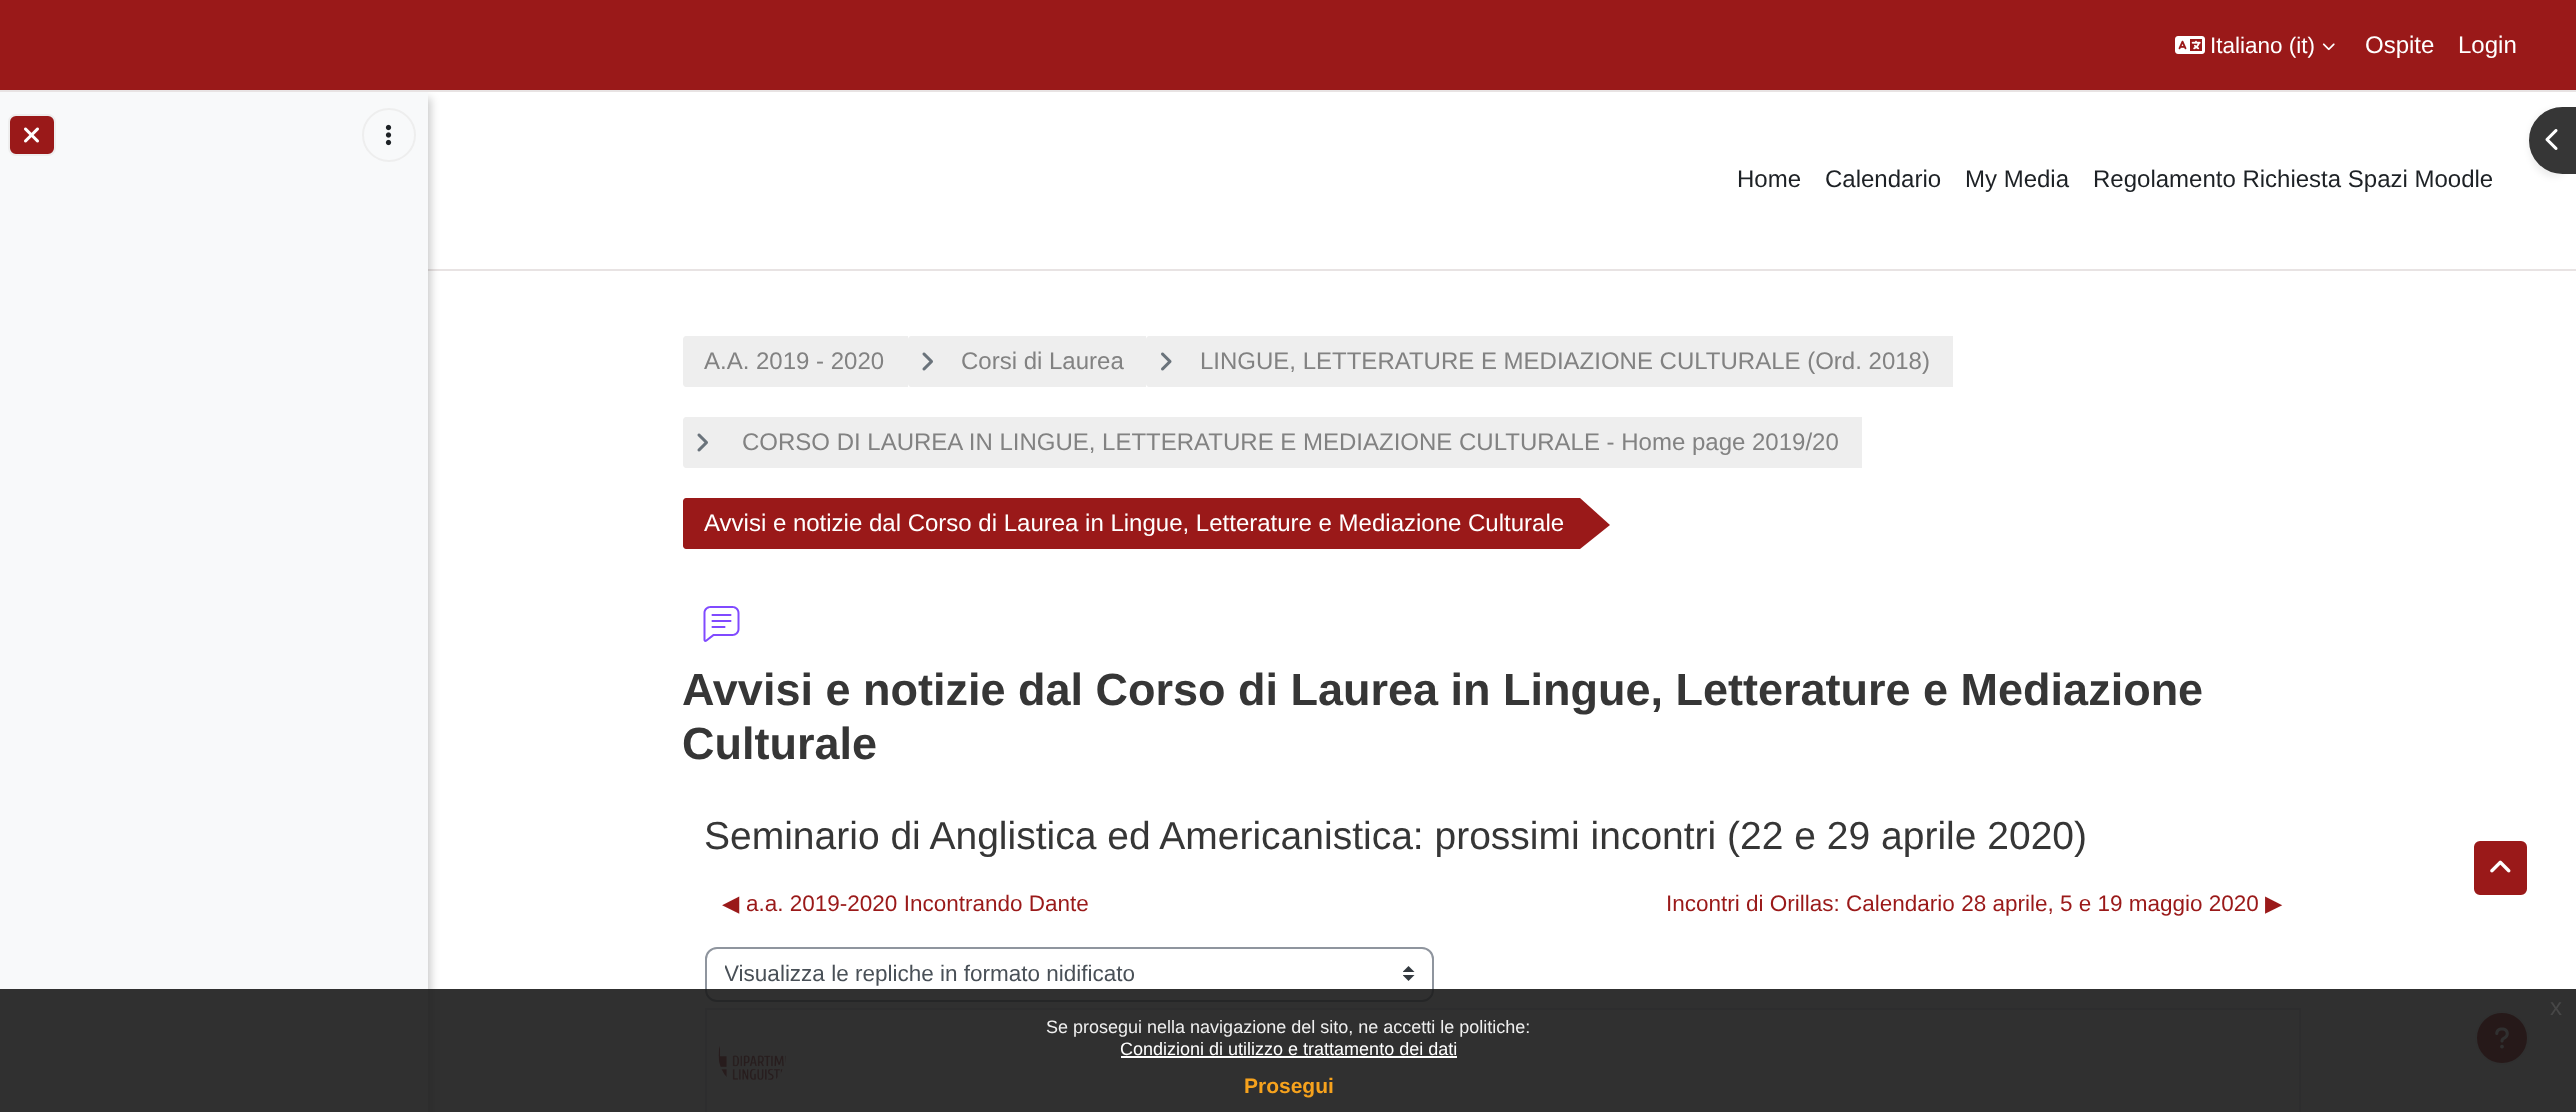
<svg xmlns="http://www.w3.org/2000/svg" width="2576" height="1112">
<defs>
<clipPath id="clip1"><rect x="725" y="957" width="666" height="35"/></clipPath>
</defs>
<rect width="100%" height="100%" fill="#fff"/>
<rect x="428" y="269" width="2148" height="2" fill="#e8e3e3"/>
<rect x="3" y="98" width="428" height="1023" fill="#00000033" filter="blur(4px)"/>
<rect width="2576" height="90" fill="#9a1919"/>
<rect y="90" width="2576" height="2" fill="#e8e3e3"/>
<image x="2175" y="36" width="30" height="18" href="media/1.png"/>
<text x="2210" y="53" style="font-family:Liberation Sans;font-size:22.5px;fill:#fff">Italiano (it)</text>
<image x="2322" y="43" width="13" height="8" href="media/2.png"/>
<text x="2365" y="53" style="font-family:Liberation Sans;font-size:24px;fill:#fff">Ospite</text>
<text x="2458" y="53" style="font-family:Liberation Sans;font-size:24px;fill:#fff">Login</text>
<rect y="92" width="428" height="1020" fill="#f8f9fa"/>
<rect x="9" y="115" width="46" height="40" rx="7" fill="#9a1919" stroke="#eee" stroke-width="2"/>
<image x="24" y="127" width="15" height="16" href="media/3.png"/>
<circle cx="389" cy="135" r="26" fill="none" stroke="#eee" stroke-width="2"/>
<image x="385" y="124" width="7" height="22" href="media/4.png"/>
<text x="1737" y="187" style="font-family:Liberation Sans;font-size:24px;fill:#1d2125">Home</text>
<text x="1825" y="187" style="font-family:Liberation Sans;font-size:24px;fill:#1d2125">Calendario</text>
<text x="1965" y="187" style="font-family:Liberation Sans;font-size:24px;fill:#1d2125">My Media</text>
<text x="2093" y="187" style="font-family:Liberation Sans;font-size:24px;fill:#1d2125">Regolamento Richiesta Spazi Moodle</text>
<rect x="2529" y="110" width="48" height="67" rx="34" fill="#00000012" filter="blur(3px)"/>
<path d="M2562.5 108h13.5v65h-13.5c-18 0-32.5-14.5-32.5-32.5c0-18 14.5-32.5 32.5-32.5z" fill="#363636" stroke="#363636" stroke-width="2"/>
<image x="2545" y="129" width="13" height="21" href="media/5.png"/>
<path d="M686 336h222v51h-222c-1.5 0-3-1.5-3-3v-45c0-1.5 1.5-3 3-3z" fill="#eee"/>
<text x="704" y="369" style="font-family:Liberation Sans;font-size:24px;fill:#828282">A.A. 2019 - 2020</text>
<path d="M911 336h235v51h-235c-1.5 0-3-1.5-3-3v-45c0-1.5 1.5-3 3-3z" fill="#eee"/>
<image x="922" y="352" width="11" height="19" href="media/6.png"/>
<text x="961" y="369" style="font-family:Liberation Sans;font-size:24px;fill:#828282">Corsi di Laurea</text>
<path d="M1149 336h804v51h-804c-1.5 0-3-1.5-3-3v-45c0-1.5 1.5-3 3-3z" fill="#eee"/>
<image x="1161" y="352" width="11" height="19" href="media/7.png"/>
<text x="1200" y="369" style="font-family:Liberation Sans;font-size:24px;fill:#828282">LINGUE, LETTERATURE E MEDIAZIONE CULTURALE (Ord. 2018)</text>
<path d="M686 417h1176v51h-1176c-1.5 0-3-1.5-3-3v-45c0-1.5 1.5-3 3-3z" fill="#eee"/>
<image x="697" y="433" width="11" height="19" href="media/6.png"/>
<text x="742" y="450" style="font-family:Liberation Sans;font-size:24px;fill:#828282">CORSO DI LAUREA IN LINGUE, LETTERATURE E MEDIAZIONE CULTURALE - Home page 2019/20</text>
<path d="M686 498h894v51h-894c-1.5 0-3-1.5-3-3v-45c0-1.5 1.5-3 3-3z" fill="#9a1919"/>
<text x="704" y="531" style="font-family:Liberation Sans;font-size:24px;fill:#fff">Avvisi e notizie dal Corso di Laurea in Lingue, Letterature e Mediazione Culturale</text>
<path d="M1580 549v-51l30 27z" fill="#9a1919"/>
<image x="703" y="606" width="37" height="36" href="media/8.png"/>
<text x="682" y="705" style="font-family:Liberation Sans;font-size:45px;font-weight:bold;fill:#363636">Avvisi e notizie dal Corso di Laurea in Lingue, Letterature e Mediazione</text>
<text x="682" y="759" style="font-family:Liberation Sans;font-size:45px;font-weight:bold;fill:#363636">Culturale</text>
<text x="704" y="849" style="font-family:Liberation Sans;font-size:39px;fill:#363636">Seminario di Anglistica ed Americanistica: prossimi incontri (22 e 29 aprile 2020)</text>
<text x="722" y="911" style="font-family:DejaVu Sans;font-size:22.5px;fill:#9a1919">◀︎</text>
<text x="746" y="911" style="font-family:Liberation Sans;font-size:22.5px;fill:#9a1919">a.a. 2019-2020 Incontrando Dante</text>
<text x="1666" y="911" style="font-family:Liberation Sans;font-size:22.5px;fill:#9a1919">Incontri di Orillas: Calendario 28 aprile, 5 e 19 maggio 2020</text>
<text x="2265" y="911" style="font-family:DejaVu Sans;font-size:22.5px;fill:#9a1919">▶︎</text>
<image x="1403" y="966" width="12" height="15" href="media/9.png"/>
<rect x="706" y="948" width="727" height="53" rx="11" fill="none" stroke="#8f959e" stroke-width="2"/>
<g clip-path="url(#clip1)">
<text x="724" y="981" style="font-family:Liberation Sans;font-size:22.5px;fill:#495057">Visualizza le repliche in formato nidificato</text>
</g>
<rect x="706" y="1009" width="1594" height="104" fill="none" stroke="#dee2e6" stroke-width="2"/>
<image x="718" y="1044" width="68" height="36" href="media/10.png"/>
<rect x="2473" y="840" width="55" height="56" rx="7" fill="#9a1919" stroke="#fff" stroke-width="2"/>
<image x="2490" y="860" width="21" height="13" href="media/11.png"/>
<circle cx="2502" cy="1038" r="26" fill="#9a1919" stroke="#eee" stroke-width="2"/>
<image x="2495" y="1027" width="14" height="22" href="media/12.png"/>
<rect y="989" width="2576" height="123" fill="#191919e6"/>
<text x="2550" y="1015" style="font-family:Liberation Sans;font-size:24px;fill:#474747">x</text>
<text x="1046" y="1033" style="font-family:Liberation Sans;font-size:18px;fill:#efefef">Se prosegui nella navigazione del sito, ne accetti le politiche:</text>
<text x="1120" y="1055" style="font-family:Liberation Sans;font-size:18px;fill:#fff">Condizioni di utilizzo e trattamento dei dati</text>
<rect x="1121" y="1056" width="336" height="2" fill="#fff"/>
<text x="1244" y="1093" style="font-family:Liberation Sans;font-size:21px;font-weight:bold;fill:#f6a21d">Prosegui</text>
</svg>
